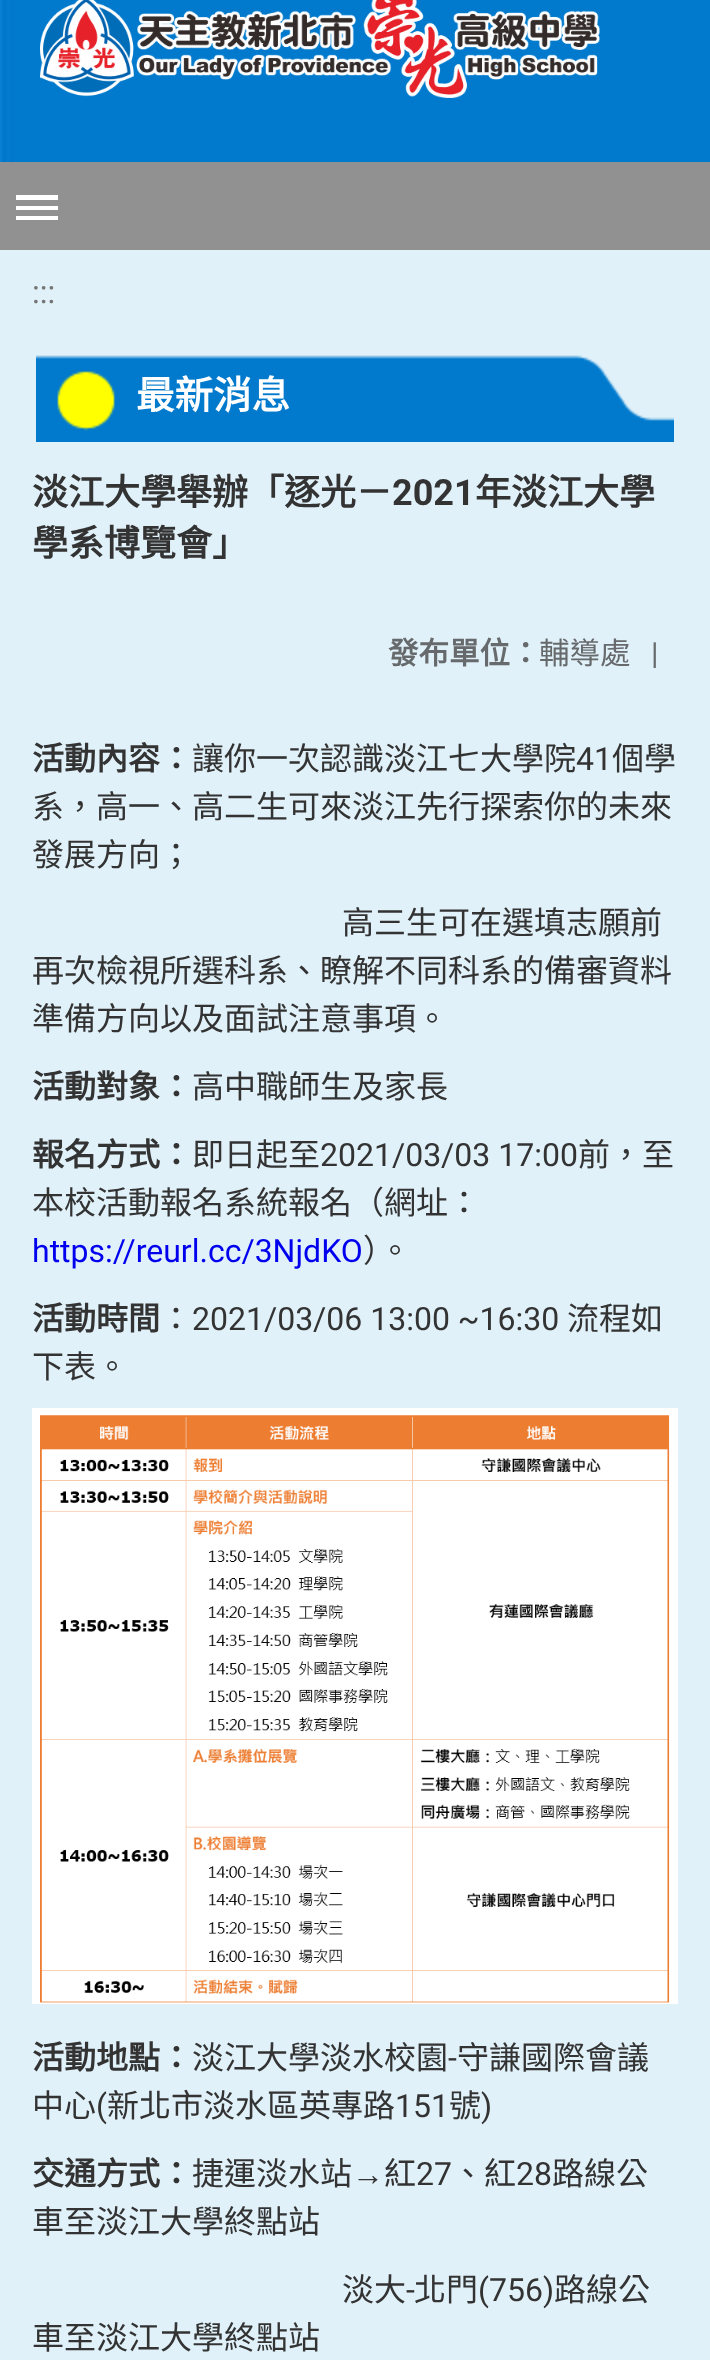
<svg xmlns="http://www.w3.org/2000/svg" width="710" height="2360">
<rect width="100%" height="100%" fill="#e0f1f9"/>
<image x="0" y="0" width="710" height="162" href="media/1.png"/>
<image x="40" y="0" width="560" height="98" href="media/2.png"/>
<rect y="162" width="710" height="88" fill="#919191"/>
<path d="M16 195h42v5h-42zm0 11h42v4h-42zm0 10h42v4h-42z" fill="#fff"/>
<text x="32" y="303" style="font-family:Roboto;font-size:32px;fill:#757474">:::</text>
<image x="36" y="355" width="638" height="87" href="media/3.png"/>
<text x="136" y="409" style="font-family:Noto Sans CJK TC;font-size:38.5px;font-weight:bold;fill:#fff">最新消息</text>
<text x="32" y="505" style="font-family:Noto Sans CJK TC;font-size:36px;font-weight:bold;fill:#333">淡江大學舉辦「逐光－</text>
<text x="392" y="505" style="font-family:Roboto;font-size:36px;font-weight:bold;fill:#333">2021</text>
<text x="475" y="505" style="font-family:Noto Sans CJK TC;font-size:36px;font-weight:bold;fill:#333">年淡江大學</text>
<text x="32" y="556" style="font-family:Noto Sans CJK TC;font-size:36px;font-weight:bold;fill:#333">學系博覽會」</text>
<text x="388" y="664" style="font-family:Noto Sans CJK TC;font-size:30.5px;font-weight:bold;fill:#676a6c">發布單位：</text>
<text x="539" y="664" style="font-family:Noto Sans CJK TC;font-size:30.5px;fill:#676a6c">輔導處</text>
<text x="651" y="664" style="font-family:Roboto;font-size:30.5px;fill:#676a6c">|</text>
<text x="32" y="770" style="font-family:Noto Sans CJK TC;font-size:32px;font-weight:bold;fill:#333">活動內容：</text>
<text x="192" y="770" style="font-family:Noto Sans CJK TC;font-size:32px;fill:#333">讓你一次認識淡江七大學院</text>
<text x="576" y="770" style="font-family:Roboto;font-size:32px;fill:#333">41</text>
<text x="612" y="770" style="font-family:Noto Sans CJK TC;font-size:32px;fill:#333">個學</text>
<text x="32" y="818" style="font-family:Noto Sans CJK TC;font-size:32px;fill:#333">系，高一、高二生可來淡江先行探索你的未來</text>
<text x="32" y="866" style="font-family:Noto Sans CJK TC;font-size:32px;fill:#333">發展方向；</text>
<text x="342" y="934" style="font-family:Noto Sans CJK TC;font-size:32px;fill:#333">高三生可在選填志願前</text>
<text x="32" y="982" style="font-family:Noto Sans CJK TC;font-size:32px;fill:#333">再次檢視所選科系、瞭解不同科系的備審資料</text>
<text x="32" y="1030" style="font-family:Noto Sans CJK TC;font-size:32px;fill:#333">準備方向以及面試注意事項。</text>
<text x="32" y="1098" style="font-family:Noto Sans CJK TC;font-size:32px;font-weight:bold;fill:#333">活動對象：</text>
<text x="192" y="1098" style="font-family:Noto Sans CJK TC;font-size:32px;fill:#333">高中職師生及家長</text>
<text x="32" y="1166" style="font-family:Noto Sans CJK TC;font-size:32px;font-weight:bold;fill:#333">報名方式：</text>
<text x="192" y="1166" style="font-family:Noto Sans CJK TC;font-size:32px;fill:#333">即日起至</text>
<text x="320" y="1166" style="font-family:Roboto;font-size:32px;fill:#333">2021/03/03 17:00</text>
<text x="578" y="1166" style="font-family:Noto Sans CJK TC;font-size:32px;fill:#333">前，至</text>
<text x="32" y="1214" style="font-family:Noto Sans CJK TC;font-size:32px;fill:#333">本校活動報名系統報名（網址：</text>
<text x="32" y="1262" style="font-family:Roboto;font-size:32px;fill:#00e">https://reurl.cc/3NjdKO</text>
<text x="363" y="1262" style="font-family:Noto Sans CJK TC;font-size:32px;fill:#333">）。</text>
<text x="32" y="1330" style="font-family:Noto Sans CJK TC;font-size:32px;font-weight:bold;fill:#333">活動時間</text>
<text x="160" y="1330" style="font-family:Noto Sans CJK TC;font-size:32px;fill:#333">：</text>
<text x="192" y="1330" style="font-family:Roboto;font-size:32px;fill:#333">2021/03/06 13:00 ~16:30</text>
<text x="567" y="1330" style="font-family:Noto Sans CJK TC;font-size:32px;fill:#333">流程如</text>
<text x="32" y="1378" style="font-family:Noto Sans CJK TC;font-size:32px;fill:#333">下表。</text>
<image x="32" y="1408" width="646" height="596" href="media/4.png"/>
<text x="32" y="2069" style="font-family:Noto Sans CJK TC;font-size:32px;font-weight:bold;fill:#333">活動地點：</text>
<text x="192" y="2069" style="font-family:Noto Sans CJK TC;font-size:32px;fill:#333">淡江大學淡水校園</text>
<text x="448" y="2069" style="font-family:Roboto;font-size:32px;fill:#333">-</text>
<text x="457" y="2069" style="font-family:Noto Sans CJK TC;font-size:32px;fill:#333">守謙國際會議</text>
<text x="32" y="2117" style="font-family:Noto Sans CJK TC;font-size:32px;fill:#333">中心</text>
<text x="96" y="2117" style="font-family:Roboto;font-size:32px;fill:#333">(</text>
<text x="107" y="2117" style="font-family:Noto Sans CJK TC;font-size:32px;fill:#333">新北市淡水區英專路</text>
<text x="395" y="2117" style="font-family:Roboto;font-size:32px;fill:#333">151</text>
<text x="449" y="2117" style="font-family:Noto Sans CJK TC;font-size:32px;fill:#333">號</text>
<text x="481" y="2117" style="font-family:Roboto;font-size:32px;fill:#333">)</text>
<text x="32" y="2185" style="font-family:Noto Sans CJK TC;font-size:32px;font-weight:bold;fill:#333">交通方式：</text>
<text x="192" y="2185" style="font-family:Noto Sans CJK TC;font-size:32px;fill:#333">捷運淡水站</text>
<text x="352" y="2185" style="font-family:Liberation Sans;font-size:32px;fill:#333">→</text>
<text x="384" y="2185" style="font-family:Noto Sans CJK TC;font-size:32px;fill:#333">紅</text>
<text x="416" y="2185" style="font-family:Roboto;font-size:32px;fill:#333">27</text>
<text x="452" y="2185" style="font-family:Noto Sans CJK TC;font-size:32px;fill:#333">、紅</text>
<text x="516" y="2185" style="font-family:Roboto;font-size:32px;fill:#333">28</text>
<text x="552" y="2185" style="font-family:Noto Sans CJK TC;font-size:32px;fill:#333">路線公</text>
<text x="32" y="2233" style="font-family:Noto Sans CJK TC;font-size:32px;fill:#333">車至淡江大學終點站</text>
<text x="342" y="2301" style="font-family:Noto Sans CJK TC;font-size:32px;fill:#333">淡大</text>
<text x="406" y="2301" style="font-family:Roboto;font-size:32px;fill:#333">-</text>
<text x="414" y="2301" style="font-family:Noto Sans CJK TC;font-size:32px;fill:#333">北門</text>
<text x="478" y="2301" style="font-family:Roboto;font-size:32px;fill:#333">(756)</text>
<text x="554" y="2301" style="font-family:Noto Sans CJK TC;font-size:32px;fill:#333">路線公</text>
<text x="32" y="2349" style="font-family:Noto Sans CJK TC;font-size:32px;fill:#333">車至淡江大學終點站</text>
</svg>
